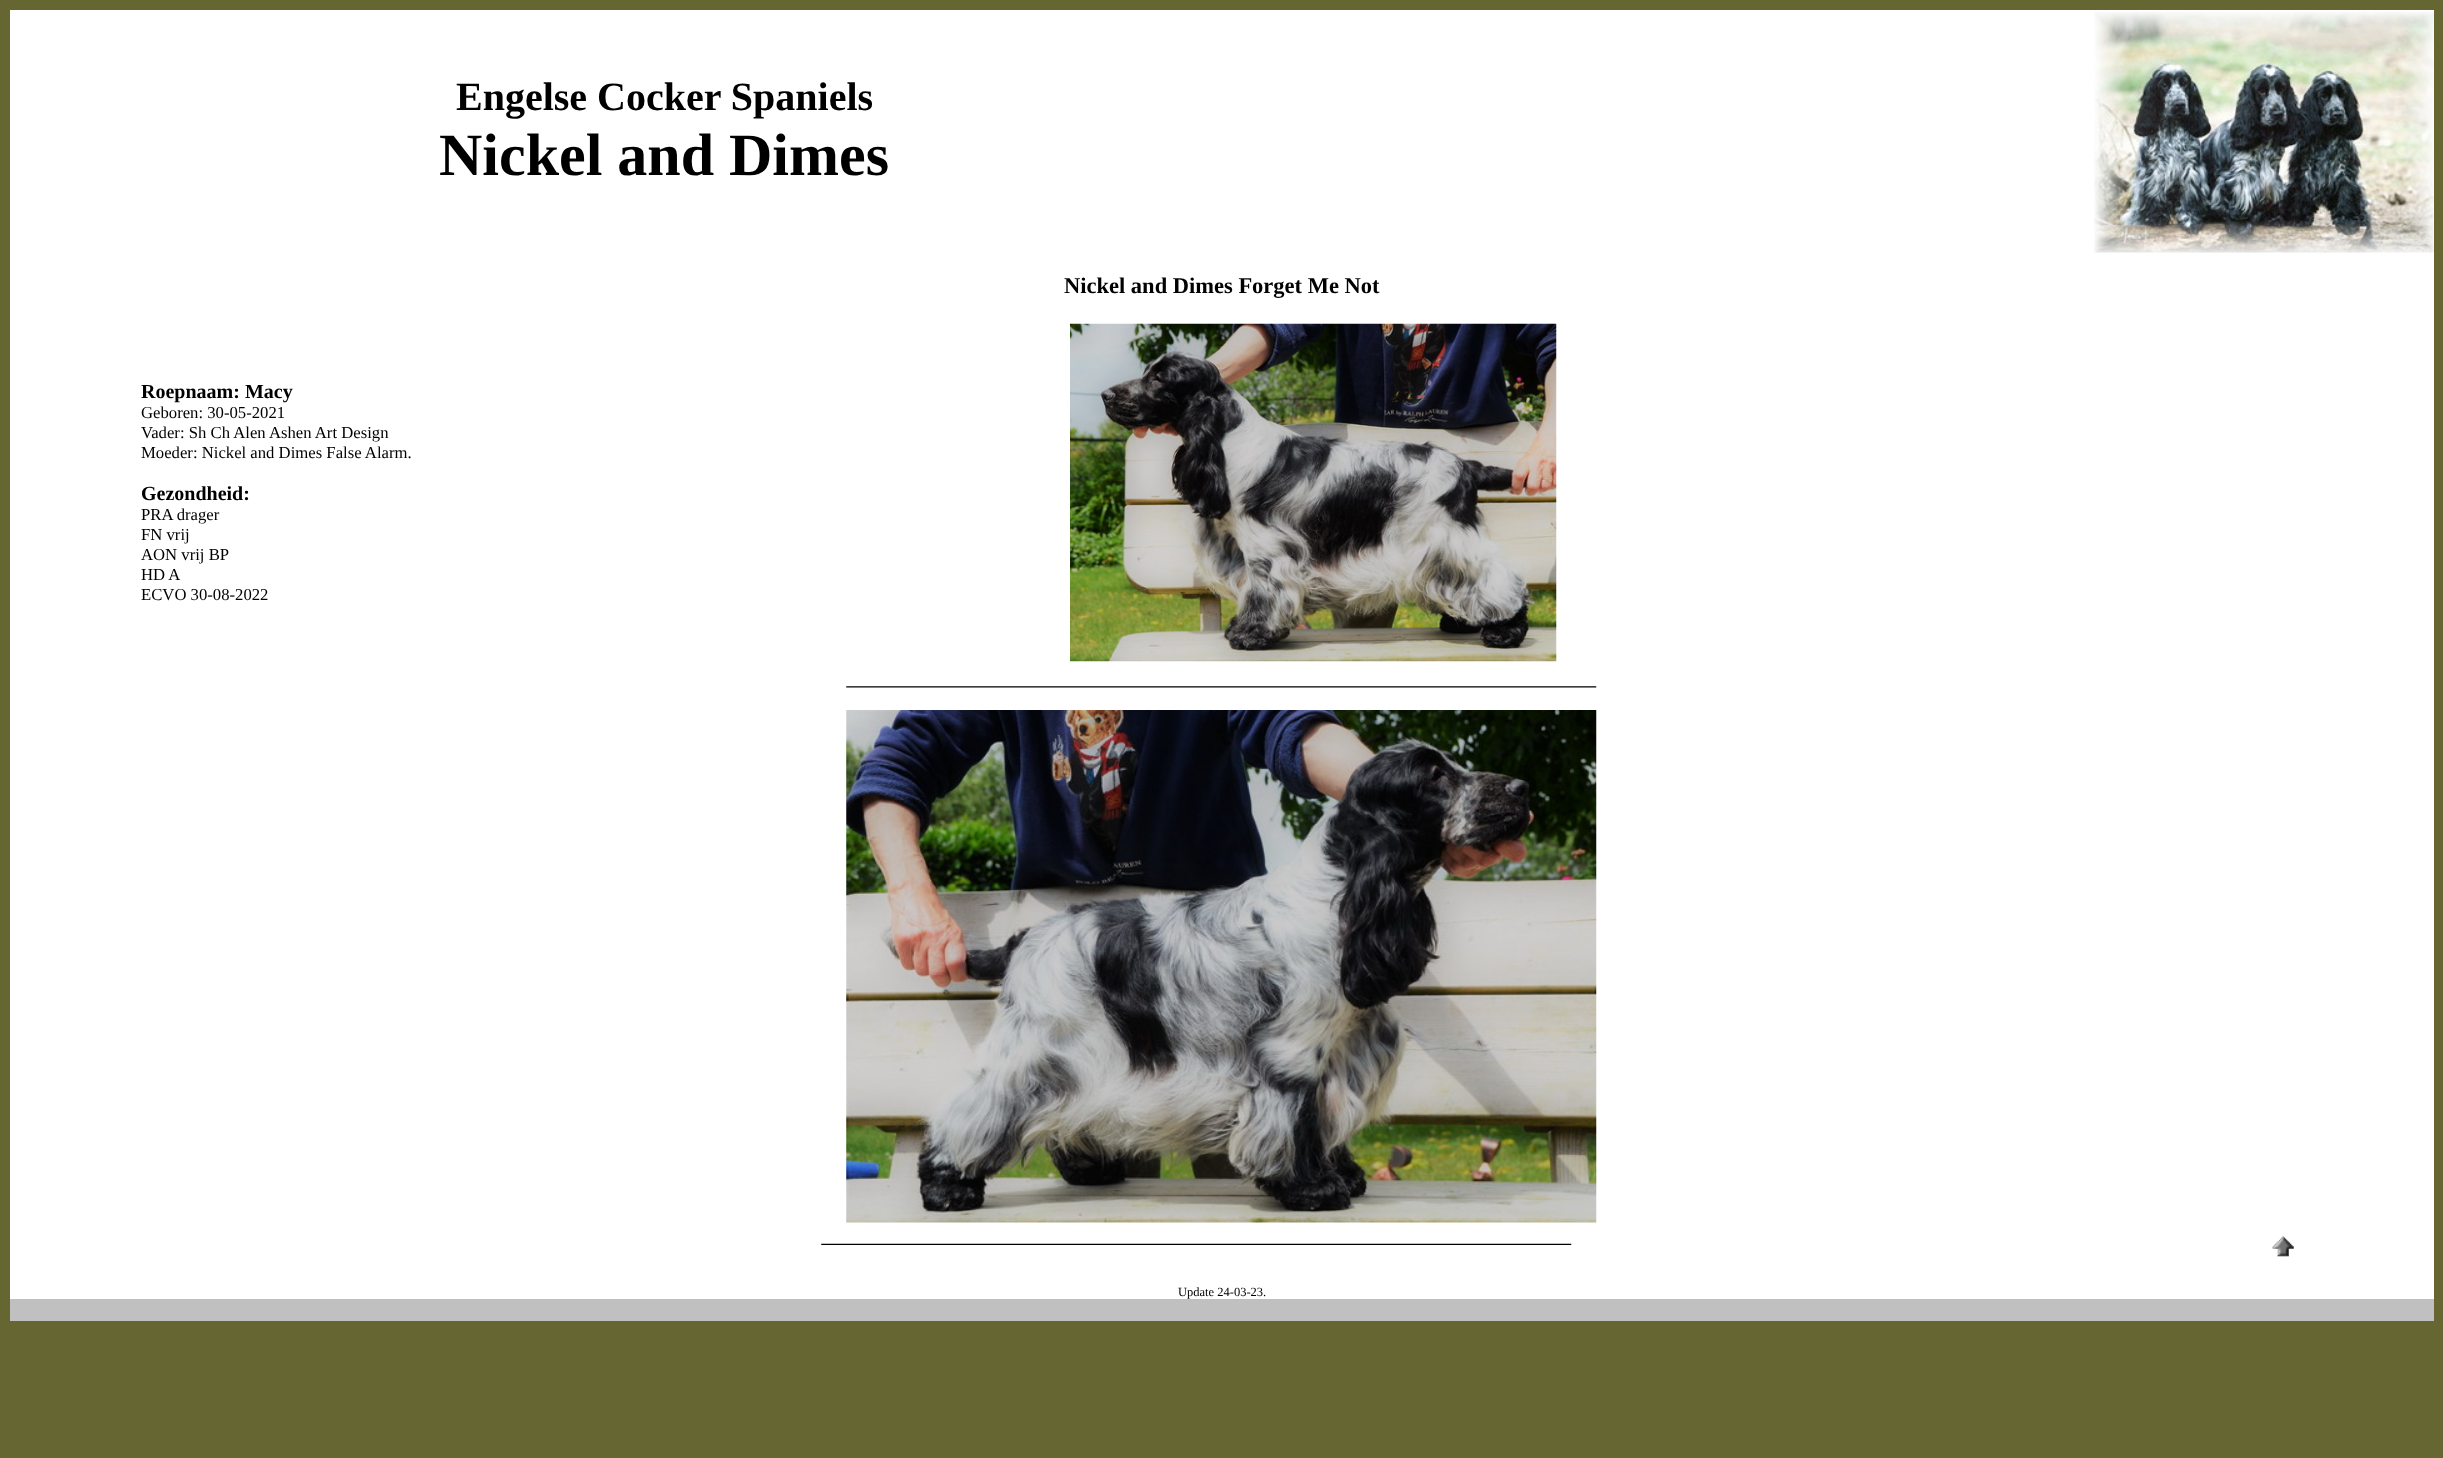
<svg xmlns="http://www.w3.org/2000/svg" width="2443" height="1458">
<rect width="100%" height="100%" fill="#663"/>
<rect x="10" y="10" width="2424" height="1289" fill="#fff"/>
<text x="456" y="110" style="font-family:Liberation Serif;font-size:40px;font-weight:bold;fill:#000">Engelse Cocker Spaniels</text>
<text x="439" y="175" style="font-family:Liberation Serif;font-size:60px;font-weight:bold;fill:#000">Nickel and Dimes</text>
<image x="2094" y="11" width="340" height="242" href="media/1.png"/>
<text x="1064" y="293" style="font-family:Liberation Serif;font-size:22.5px;font-weight:bold;fill:#000">Nickel and Dimes Forget Me Not</text>
<text x="141" y="398" style="font-family:Liberation Serif;font-size:20px;font-weight:bold;fill:#000">Roepnaam: Macy</text>
<text x="141" y="418" style="font-family:Liberation Serif;font-size:16.7px;fill:#000">Geboren: 30-05-2021</text>
<text x="141" y="438" style="font-family:Liberation Serif;font-size:16.7px;fill:#000">Vader: Sh Ch Alen Ashen Art Design</text>
<text x="141" y="458" style="font-family:Liberation Serif;font-size:16.7px;fill:#000">Moeder: Nickel and Dimes False Alarm.</text>
<text x="141" y="500" style="font-family:Liberation Serif;font-size:20px;font-weight:bold;fill:#000">Gezondheid:</text>
<text x="141" y="520" style="font-family:Liberation Serif;font-size:16.7px;fill:#000">PRA drager</text>
<text x="141" y="540" style="font-family:Liberation Serif;font-size:16.7px;fill:#000">FN vrij</text>
<text x="141" y="560" style="font-family:Liberation Serif;font-size:16.7px;fill:#000">AON vrij BP</text>
<text x="141" y="580" style="font-family:Liberation Serif;font-size:16.7px;fill:#000">HD A</text>
<text x="141" y="600" style="font-family:Liberation Serif;font-size:16.7px;fill:#000">ECVO 30-08-2022</text>
<image x="1070" y="323" width="487" height="339" href="media/2.png"/>
<image x="846" y="686" width="751" height="2" href="media/3.png"/>
<image x="846" y="710" width="751" height="513" href="media/4.png"/>
<image x="821" y="1243" width="751" height="2" href="media/5.png"/>
<image x="2272" y="1236" width="22" height="21" href="media/6.png"/>
<text x="1178" y="1296" style="font-family:Liberation Serif;font-size:12.5px;fill:#000">Update 24-03-23.</text>
<rect x="10" y="1299" width="2424" height="22" fill="#c0c0c0"/>
</svg>
